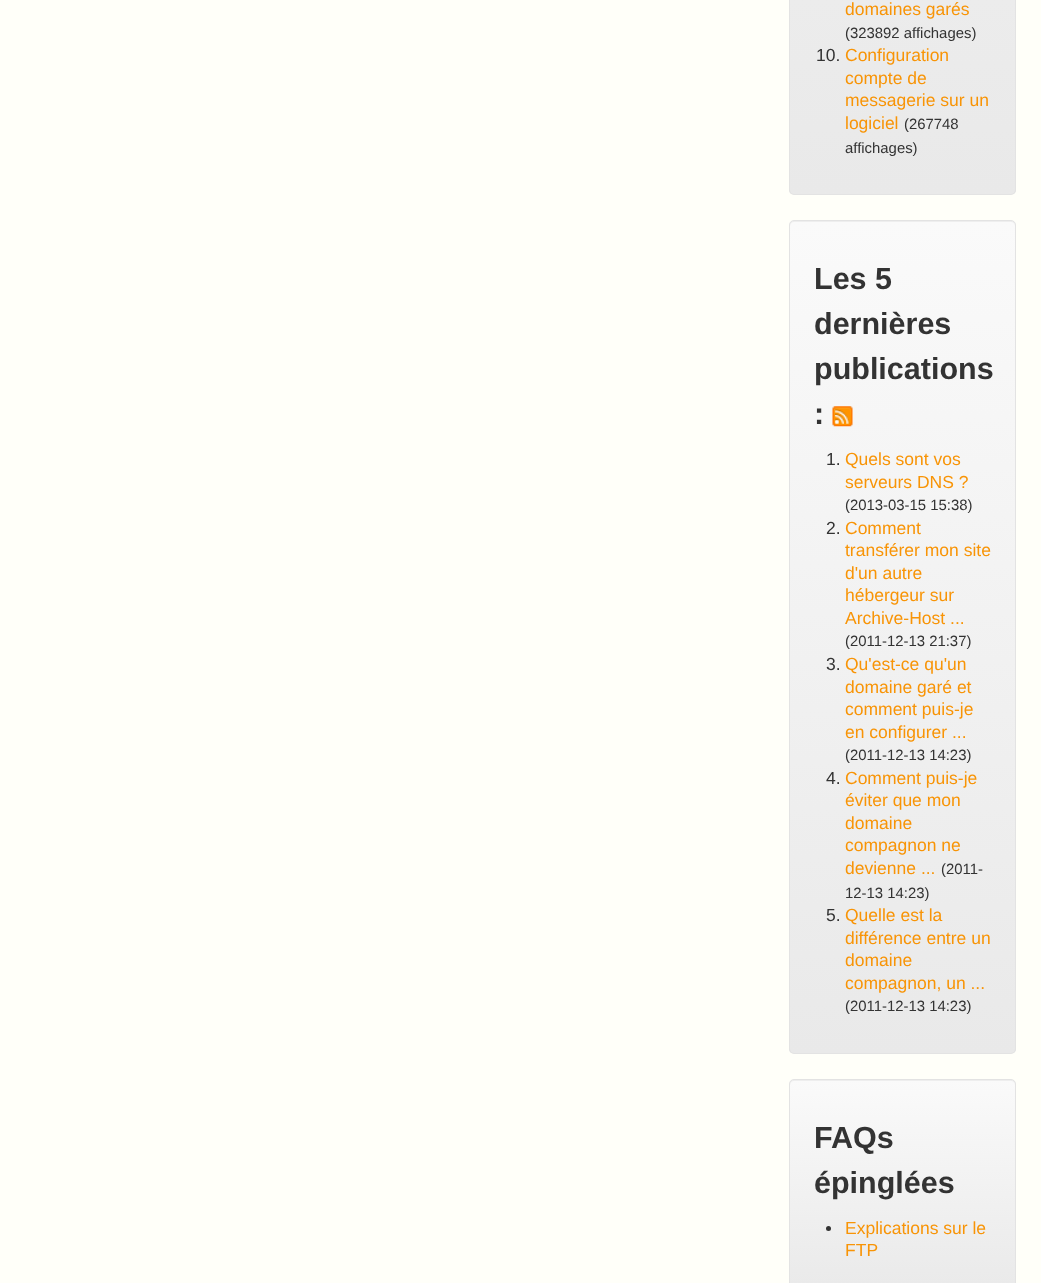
<svg xmlns="http://www.w3.org/2000/svg" width="1041" height="1283">
<defs>
<clipPath id="clip1"><rect x="789" y="-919" width="227" height="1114" rx="5"/></clipPath>
<linearGradient id="g1" gradientUnits="userSpaceOnUse" x1="903" y1="-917" x2="903" y2="194"><stop offset="0" stop-color="#fafafa"/><stop offset="1" stop-color="#e9e9e9"/></linearGradient>
<clipPath id="clip2"><rect x="789" y="220" width="227" height="834" rx="5"/></clipPath>
<linearGradient id="g2" gradientUnits="userSpaceOnUse" x1="903" y1="221" x2="903" y2="1053"><stop offset="0" stop-color="#fafafa"/><stop offset="1" stop-color="#e9e9e9"/></linearGradient>
<clipPath id="clip3"><rect x="789" y="1079" width="227" height="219" rx="5"/></clipPath>
<linearGradient id="g3" gradientUnits="userSpaceOnUse" x1="903" y1="1080" x2="903" y2="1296"><stop offset="0" stop-color="#fafafa"/><stop offset="1" stop-color="#e9e9e9"/></linearGradient>
</defs>
<rect width="100%" height="100%" fill="#fffff9"/>
<g clip-path="url(#clip1)">
<rect x="789" width="227" height="194" fill="url(#g1)"/>
</g>
<rect x="789.5" y="-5.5" width="226" height="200" rx="4.5" fill="none" stroke="#e3e3e3"/>
<text x="845" y="15" style="font-family:Liberation Sans;font-size:17.5px;fill:#f89406">domaines garés</text>
<text x="845" y="38" style="font-family:Liberation Sans;font-size:14.9px;fill:#333">(323892 affichages)</text>
<text x="816" y="61" style="font-family:Liberation Sans;font-size:17.5px;fill:#333">10.</text>
<text x="845" y="61" style="font-family:Liberation Sans;font-size:17.5px;fill:#f89406">Configuration</text>
<text x="845" y="84" style="font-family:Liberation Sans;font-size:17.5px;fill:#f89406">compte de</text>
<text x="845" y="106" style="font-family:Liberation Sans;font-size:17.5px;fill:#f89406">messagerie sur un</text>
<text x="845" y="129" style="font-family:Liberation Sans;font-size:17.5px;fill:#f89406">logiciel</text>
<text x="904" y="129" style="font-family:Liberation Sans;font-size:14.9px;fill:#333">(267748</text>
<text x="845" y="153" style="font-family:Liberation Sans;font-size:14.9px;fill:#333">affichages)</text>
<g clip-path="url(#clip2)">
<rect x="789" y="221" width="227" height="832" fill="url(#g2)"/>
</g>
<path d="M794 222h217c2 0 4 2 4 4c0-3-1-5-4-5h-217c-3 0-4 2-4 5c0-2 2-4 4-4z" fill="#eee"/>
<rect x="789.5" y="220.5" width="226" height="833" rx="4.5" fill="none" stroke="#e3e3e3"/>
<text x="814" y="289" style="font-family:Liberation Sans;font-size:30.5px;font-weight:bold;fill:#333">Les 5</text>
<text x="814" y="334" style="font-family:Liberation Sans;font-size:30.5px;font-weight:bold;fill:#333">dernières</text>
<text x="814" y="379" style="font-family:Liberation Sans;font-size:30.5px;font-weight:bold;fill:#333">publications</text>
<text x="814" y="424" style="font-family:Liberation Sans;font-size:30.5px;font-weight:bold;fill:#333">:</text>
<image x="832" y="406" width="21" height="21" href="media/1.png"/>
<text x="826" y="465" style="font-family:Liberation Sans;font-size:17.5px;fill:#333">1.</text>
<text x="845" y="465" style="font-family:Liberation Sans;font-size:17.5px;fill:#f89406">Quels sont vos</text>
<text x="845" y="488" style="font-family:Liberation Sans;font-size:17.5px;fill:#f89406">serveurs DNS ?</text>
<text x="845" y="510" style="font-family:Liberation Sans;font-size:14.9px;fill:#333">(2013-03-15 15:38)</text>
<text x="826" y="534" style="font-family:Liberation Sans;font-size:17.5px;fill:#333">2.</text>
<text x="845" y="534" style="font-family:Liberation Sans;font-size:17.5px;fill:#f89406">Comment</text>
<text x="845" y="556" style="font-family:Liberation Sans;font-size:17.5px;fill:#f89406">transférer mon site</text>
<text x="845" y="579" style="font-family:Liberation Sans;font-size:17.5px;fill:#f89406">d'un autre</text>
<text x="845" y="601" style="font-family:Liberation Sans;font-size:17.5px;fill:#f89406">hébergeur sur</text>
<text x="845" y="624" style="font-family:Liberation Sans;font-size:17.5px;fill:#f89406">Archive-Host ...</text>
<text x="845" y="646" style="font-family:Liberation Sans;font-size:14.9px;fill:#333">(2011-12-13 21:37)</text>
<text x="826" y="670" style="font-family:Liberation Sans;font-size:17.5px;fill:#333">3.</text>
<text x="845" y="670" style="font-family:Liberation Sans;font-size:17.5px;fill:#f89406">Qu'est-ce qu'un</text>
<text x="845" y="693" style="font-family:Liberation Sans;font-size:17.5px;fill:#f89406">domaine garé et</text>
<text x="845" y="715" style="font-family:Liberation Sans;font-size:17.5px;fill:#f89406">comment puis-je</text>
<text x="845" y="738" style="font-family:Liberation Sans;font-size:17.5px;fill:#f89406">en configurer ...</text>
<text x="845" y="760" style="font-family:Liberation Sans;font-size:14.9px;fill:#333">(2011-12-13 14:23)</text>
<text x="826" y="784" style="font-family:Liberation Sans;font-size:17.5px;fill:#333">4.</text>
<text x="845" y="784" style="font-family:Liberation Sans;font-size:17.5px;fill:#f89406">Comment puis-je</text>
<text x="845" y="806" style="font-family:Liberation Sans;font-size:17.5px;fill:#f89406">éviter que mon</text>
<text x="845" y="829" style="font-family:Liberation Sans;font-size:17.5px;fill:#f89406">domaine</text>
<text x="845" y="851" style="font-family:Liberation Sans;font-size:17.5px;fill:#f89406">compagnon ne</text>
<text x="845" y="874" style="font-family:Liberation Sans;font-size:17.5px;fill:#f89406">devienne ...</text>
<text x="941" y="874" style="font-family:Liberation Sans;font-size:14.9px;fill:#333">(2011-</text>
<text x="845" y="898" style="font-family:Liberation Sans;font-size:14.9px;fill:#333">12-13 14:23)</text>
<text x="826" y="921" style="font-family:Liberation Sans;font-size:17.5px;fill:#333">5.</text>
<text x="845" y="921" style="font-family:Liberation Sans;font-size:17.5px;fill:#f89406">Quelle est la</text>
<text x="845" y="944" style="font-family:Liberation Sans;font-size:17.5px;fill:#f89406">différence entre un</text>
<text x="845" y="966" style="font-family:Liberation Sans;font-size:17.5px;fill:#f89406">domaine</text>
<text x="845" y="989" style="font-family:Liberation Sans;font-size:17.5px;fill:#f89406">compagnon, un ...</text>
<text x="845" y="1011" style="font-family:Liberation Sans;font-size:14.9px;fill:#333">(2011-12-13 14:23)</text>
<g clip-path="url(#clip3)">
<rect x="789" y="1080" width="227" height="203" fill="url(#g3)"/>
</g>
<path d="M794 1081h217c2 0 4 2 4 4c0-3-1-5-4-5h-217c-3 0-4 2-4 5c0-2 2-4 4-4z" fill="#eee"/>
<rect x="789.5" y="1079.5" width="226" height="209" rx="4.5" fill="none" stroke="#e3e3e3"/>
<text x="814" y="1148" style="font-family:Liberation Sans;font-size:30.5px;font-weight:bold;fill:#333">FAQs</text>
<text x="814" y="1193" style="font-family:Liberation Sans;font-size:30.5px;font-weight:bold;fill:#333">épinglées</text>
<circle cx="828.5" cy="1228.5" r="2.5" fill="#333"/>
<text x="845" y="1234" style="font-family:Liberation Sans;font-size:17.5px;fill:#f89406">Explications sur le</text>
<text x="845" y="1256" style="font-family:Liberation Sans;font-size:17.5px;fill:#f89406">FTP</text>
</svg>
